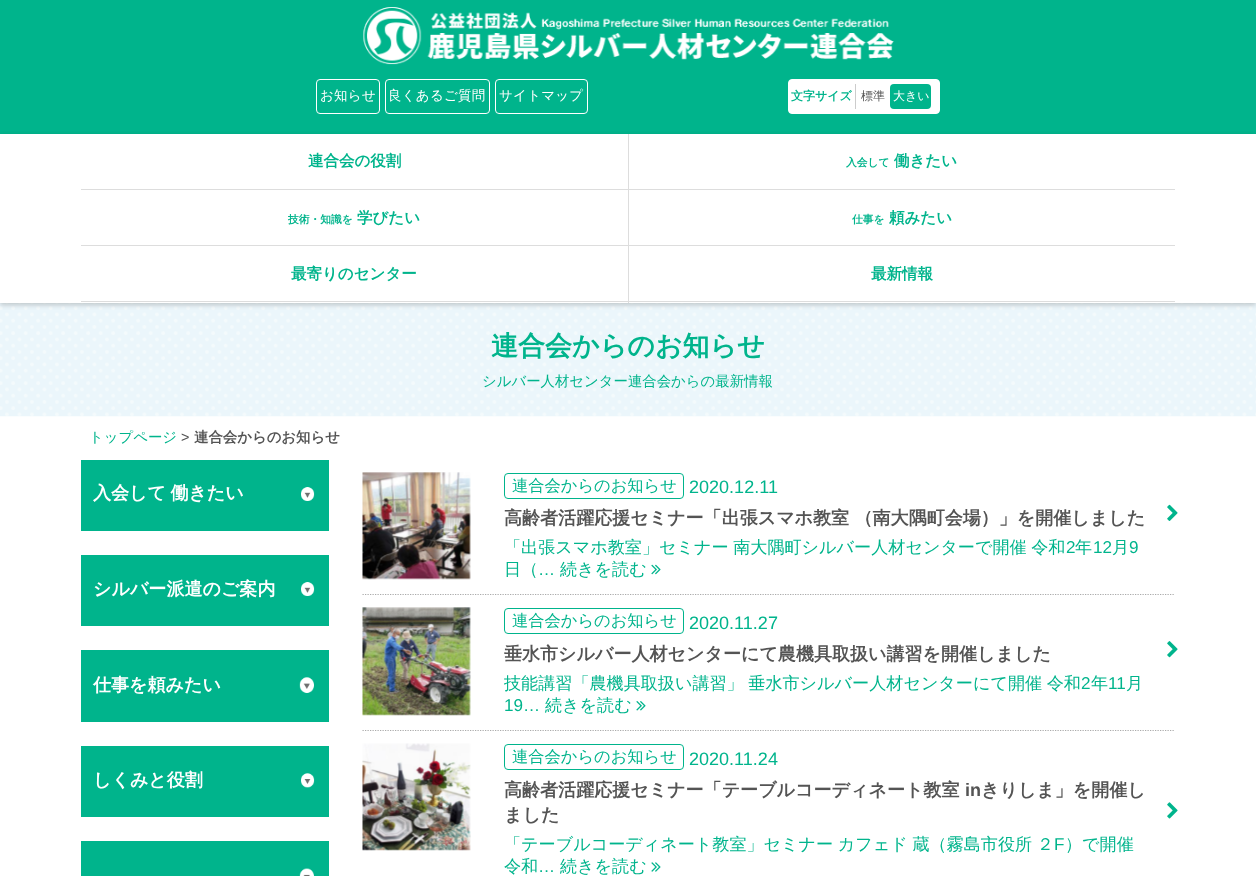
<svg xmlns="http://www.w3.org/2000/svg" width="1256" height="876">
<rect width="100%" height="100%" fill="#fff"/>
<image x="0" y="303" width="1256" height="114" href="media/1.png"/>
<rect width="1256" height="134" fill="#00b48c"/>
<image x="363" y="7" width="531" height="58" href="media/2.png"/>
<rect x="316.5" y="79.5" width="63" height="34" rx="3.5" fill="none" stroke="#fff"/>
<text x="320" y="100" style="font-family:WenQuanYi Zen Hei;font-size:13.5px;font-weight:500;letter-spacing:0.25px;fill:#fff">お知らせ</text>
<rect x="385.5" y="79.5" width="104" height="34" rx="3.5" fill="none" stroke="#fff"/>
<text x="388" y="100" style="font-family:WenQuanYi Zen Hei;font-size:13.5px;font-weight:500;letter-spacing:0.25px;fill:#fff">良くあるご質問</text>
<rect x="495.5" y="79.5" width="92" height="34" rx="3.5" fill="none" stroke="#fff"/>
<text x="499" y="100" style="font-family:WenQuanYi Zen Hei;font-size:13.5px;font-weight:500;letter-spacing:0.25px;fill:#fff">サイトマップ</text>
<rect x="788.5" y="79.5" width="151" height="34" rx="3.5" fill="#fff" stroke="#fff"/>
<rect x="855" y="84" width="1" height="25" fill="#ccc"/>
<text x="791" y="100" style="font-family:WenQuanYi Zen Hei;font-size:12px;font-weight:bold;fill:#00b48c">文字サイズ</text>
<text x="861" y="100" style="font-family:WenQuanYi Zen Hei;font-size:12px;font-weight:500;fill:#545454">標準</text>
<rect x="890" y="84" width="41" height="25" rx="4" fill="#00b48c"/>
<text x="893" y="100" style="font-family:WenQuanYi Zen Hei;font-size:12px;font-weight:500;fill:#fff">大きい</text>
<rect y="136" width="1256" height="169" fill="#0b030633" filter="blur(2.5px)"/>
<rect y="134" width="1256" height="169" fill="#fff"/>
<rect x="628" y="134" width="1" height="169" fill="#ddd"/>
<rect x="81" y="189" width="1094" height="1" fill="#ddd"/>
<text x="308" y="166" style="font-family:WenQuanYi Zen Hei;font-size:15.5px;font-weight:bold;fill:#00b48c">連合会の役割</text>
<text x="846" y="166" style="font-family:WenQuanYi Zen Hei;font-size:10.75px;font-weight:bold;fill:#00b48c">入会して</text>
<text x="894" y="166" style="font-family:WenQuanYi Zen Hei;font-size:15.5px;font-weight:bold;fill:#00b48c">働きたい</text>
<rect x="81" y="245" width="1094" height="1" fill="#ddd"/>
<text x="288" y="223" style="font-family:WenQuanYi Zen Hei;font-size:10.75px;font-weight:bold;fill:#00b48c">技術・知識を</text>
<text x="357" y="223" style="font-family:WenQuanYi Zen Hei;font-size:15.5px;font-weight:bold;fill:#00b48c">学びたい</text>
<text x="852" y="223" style="font-family:WenQuanYi Zen Hei;font-size:10.75px;font-weight:bold;fill:#00b48c">仕事を</text>
<text x="889" y="223" style="font-family:WenQuanYi Zen Hei;font-size:15.5px;font-weight:bold;fill:#00b48c">頼みたい</text>
<rect x="81" y="301" width="1094" height="1" fill="#ddd"/>
<text x="291" y="279" style="font-family:WenQuanYi Zen Hei;font-size:15.5px;font-weight:bold;fill:#00b48c">最寄りのセンター</text>
<text x="871" y="279" style="font-family:WenQuanYi Zen Hei;font-size:15.5px;font-weight:bold;fill:#00b48c">最新情報</text>
<text x="491" y="355" style="font-family:WenQuanYi Zen Hei;font-size:27px;font-weight:bold;fill:#00b48c">連合会からのお知らせ</text>
<text x="482" y="386" style="font-family:WenQuanYi Zen Hei;font-size:14.4px;font-weight:500;fill:#00b48c">シルバー人材センター連合会からの最新情報</text>
<text x="89" y="442" style="font-family:WenQuanYi Zen Hei;font-size:14.4px;font-weight:500;fill:#00b48c">トップページ</text>
<text x="181" y="442" style="font-family:Liberation Sans;font-size:14.4px;fill:#545454">&gt;</text>
<text x="194" y="442" style="font-family:WenQuanYi Zen Hei;font-size:14.4px;font-weight:bold;fill:#545454">連合会からのお知らせ</text>
<rect x="81" y="460" width="248" height="71" fill="#00b48c"/>
<image x="301" y="487" width="14" height="14" href="media/3.png"/>
<text x="93" y="499" word-spacing="-1" style="font-family:WenQuanYi Zen Hei;font-size:18.05px;font-weight:bold;fill:#fff">入会して 働きたい</text>
<rect x="81" y="555" width="248" height="71" fill="#00b48c"/>
<image x="301" y="582" width="14" height="14" href="media/3.png"/>
<text x="93" y="595" style="font-family:WenQuanYi Zen Hei;font-size:18.05px;font-weight:bold;fill:#fff">シルバー派遣のご案内</text>
<rect x="81" y="650" width="248" height="72" fill="#00b48c"/>
<image x="299" y="677" width="15" height="16" href="media/4.png"/>
<text x="93" y="691" style="font-family:WenQuanYi Zen Hei;font-size:18.05px;font-weight:bold;fill:#fff">仕事を頼みたい</text>
<rect x="81" y="746" width="248" height="71" fill="#00b48c"/>
<image x="301" y="773" width="14" height="15" href="media/5.png"/>
<text x="93" y="786" style="font-family:WenQuanYi Zen Hei;font-size:18.05px;font-weight:bold;fill:#fff">しくみと役割</text>
<rect x="81" y="841" width="248" height="35" fill="#00b48c"/>
<image x="299" y="868" width="15" height="8" href="media/6.png"/>
<path d="M362.5 594.5h812.5" fill="none" stroke="#aaa" stroke-width="1.2" stroke-dasharray="1.25 1.25"/>
<image x="362" y="472" width="109" height="108" href="media/7.png"/>
<rect x="504.5" y="473.5" width="179" height="25" rx="3.5" fill="none" stroke="#00b48c"/>
<text x="512" y="491" style="font-family:WenQuanYi Zen Hei;font-size:16.25px;font-weight:500;fill:#00b48c">連合会からのお知らせ</text>
<text x="689" y="493" style="font-family:Liberation Sans;font-size:18.05px;fill:#00b48c">2020.12.11</text>
<text x="504" y="524" style="font-family:WenQuanYi Zen Hei;font-size:18.05px;font-weight:bold;fill:#545454">高齢者活躍応援セミナー「出張スマホ教室 （南大隅町会場）」を開催しました</text>
<image x="1167" y="504" width="11" height="17" href="media/8.png"/>
<text x="504" y="553" word-spacing="-0.5" style="font-family:WenQuanYi Zen Hei;font-size:17.1px;font-weight:500;fill:#00b48c">「出張スマホ教室」セミナー 南大隅町シルバー人材センターで開催 令和</text>
<text x="1066" y="553" style="font-family:Liberation Sans;font-size:17.1px;fill:#00b48c">2</text>
<text x="1075" y="553" style="font-family:WenQuanYi Zen Hei;font-size:17.1px;font-weight:500;fill:#00b48c">年</text>
<text x="1093" y="553" style="font-family:Liberation Sans;font-size:17.1px;fill:#00b48c">12</text>
<text x="1112" y="553" style="font-family:WenQuanYi Zen Hei;font-size:17.1px;font-weight:500;fill:#00b48c">月</text>
<text x="1129" y="553" style="font-family:Liberation Sans;font-size:17.1px;fill:#00b48c">9</text>
<text x="504" y="575" style="font-family:WenQuanYi Zen Hei;font-size:17.1px;font-weight:500;fill:#00b48c">日（</text>
<text x="538" y="575" style="font-family:Liberation Sans;font-size:17.1px;fill:#00b48c">…</text>
<text x="560" y="575" style="font-family:WenQuanYi Zen Hei;font-size:17.1px;font-weight:500;fill:#00b48c">続きを読む</text>
<image x="651" y="564" width="10" height="11" href="media/9.png"/>
<path d="M362.5 730.5h812.5" fill="none" stroke="#aaa" stroke-width="1.2" stroke-dasharray="1.25 1.25"/>
<image x="362" y="607" width="109" height="109" href="media/10.png"/>
<rect x="504.5" y="608.5" width="179" height="25" rx="3.5" fill="none" stroke="#00b48c"/>
<text x="512" y="626" style="font-family:WenQuanYi Zen Hei;font-size:16.25px;font-weight:500;fill:#00b48c">連合会からのお知らせ</text>
<text x="689" y="629" style="font-family:Liberation Sans;font-size:18.05px;fill:#00b48c">2020.11.27</text>
<text x="504" y="660" style="font-family:WenQuanYi Zen Hei;font-size:18.05px;font-weight:bold;fill:#545454">垂水市シルバー人材センターにて農機具取扱い講習を開催しました</text>
<image x="1167" y="641" width="11" height="17" href="media/11.png"/>
<text x="504" y="689" word-spacing="-0.5" style="font-family:WenQuanYi Zen Hei;font-size:17.1px;font-weight:500;fill:#00b48c">技能講習「農機具取扱い講習」 垂水市シルバー人材センターにて開催 令和</text>
<text x="1081" y="689" style="font-family:Liberation Sans;font-size:17.1px;fill:#00b48c">2</text>
<text x="1091" y="689" style="font-family:WenQuanYi Zen Hei;font-size:17.1px;font-weight:500;fill:#00b48c">年</text>
<text x="1108" y="689" style="font-family:Liberation Sans;font-size:17.1px;fill:#00b48c">11</text>
<text x="1126" y="689" style="font-family:WenQuanYi Zen Hei;font-size:17.1px;font-weight:500;fill:#00b48c">月</text>
<text x="504" y="711" style="font-family:Liberation Sans;font-size:17.1px;fill:#00b48c">19…</text>
<text x="545" y="711" style="font-family:WenQuanYi Zen Hei;font-size:17.1px;font-weight:500;fill:#00b48c">続きを読む</text>
<image x="636" y="701" width="10" height="10" href="media/12.png"/>
<image x="362" y="743" width="109" height="108" href="media/13.png"/>
<rect x="504.5" y="744.5" width="179" height="25" rx="3.5" fill="none" stroke="#00b48c"/>
<text x="512" y="762" style="font-family:WenQuanYi Zen Hei;font-size:16.25px;font-weight:500;fill:#00b48c">連合会からのお知らせ</text>
<text x="689" y="765" style="font-family:Liberation Sans;font-size:18.05px;fill:#00b48c">2020.11.24</text>
<text x="504" y="796" style="font-family:WenQuanYi Zen Hei;font-size:18.05px;font-weight:bold;fill:#545454">高齢者活躍応援セミナー「テーブルコーディネート教室</text>
<text x="965" y="796" style="font-family:Liberation Sans;font-size:18.05px;font-weight:bold;fill:#545454">in</text>
<text x="981" y="796" style="font-family:WenQuanYi Zen Hei;font-size:18.05px;font-weight:bold;fill:#545454">きりしま」を開催し</text>
<text x="504" y="821" style="font-family:WenQuanYi Zen Hei;font-size:18.05px;font-weight:bold;fill:#545454">ました</text>
<image x="1167" y="802" width="11" height="17" href="media/14.png"/>
<text x="504" y="850" word-spacing="-0.5" style="font-family:WenQuanYi Zen Hei;font-size:17.1px;font-weight:500;fill:#00b48c">「テーブルコーディネート教室」セミナー カフェド 蔵（霧島市役所 ２</text>
<text x="1054" y="850" style="font-family:Liberation Sans;font-size:17.1px;fill:#00b48c">F</text>
<text x="1065" y="850" style="font-family:WenQuanYi Zen Hei;font-size:17.1px;font-weight:500;fill:#00b48c">）で開催</text>
<text x="504" y="872" style="font-family:WenQuanYi Zen Hei;font-size:17.1px;font-weight:500;fill:#00b48c">令和</text>
<text x="538" y="872" style="font-family:Liberation Sans;font-size:17.1px;fill:#00b48c">…</text>
<text x="560" y="872" style="font-family:WenQuanYi Zen Hei;font-size:17.1px;font-weight:500;fill:#00b48c">続きを読む</text>
<image x="651" y="862" width="10" height="10" href="media/15.png"/>
</svg>
